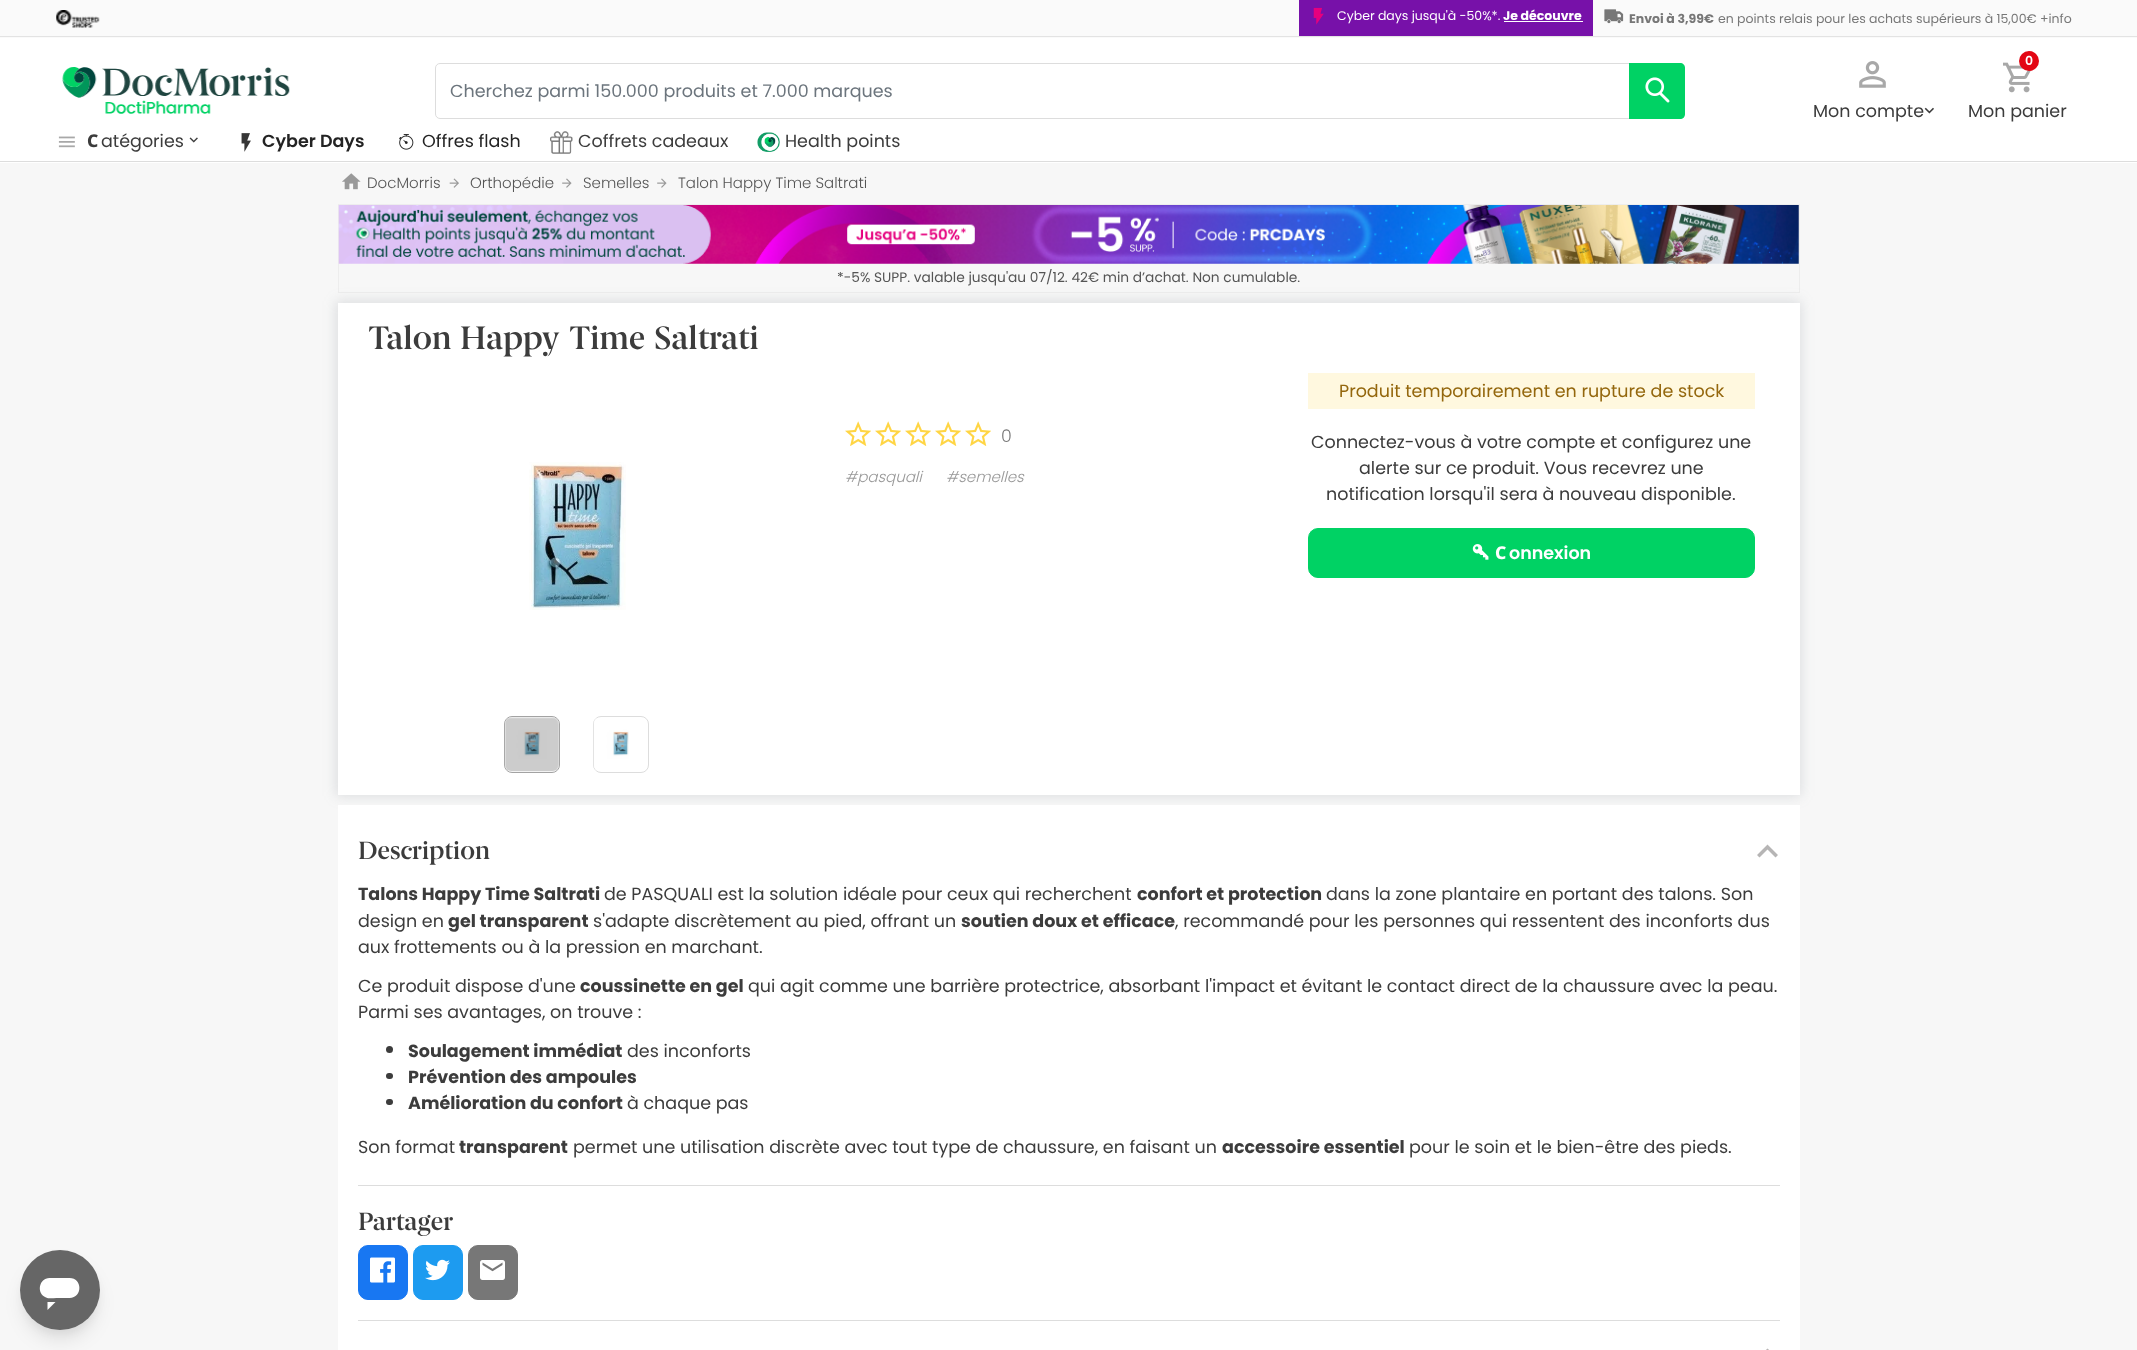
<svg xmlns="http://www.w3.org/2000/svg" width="2137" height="1350">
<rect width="100%" height="100%" fill="#f7f7f7"/>
<rect y="38" width="2137" height="125" fill="#fff"/>
<rect y="161" width="2137" height="1" fill="#ddd"/>
<rect width="2137" height="38" fill="#fafafa"/>
<rect y="36" width="2137" height="1" fill="#e3e3e3"/>
<image x="56" y="10" width="44" height="18" href="media/1.png"/>
<rect x="1299" width="294" height="36" fill="#7711a9"/>
<image x="1313" y="7" width="11" height="18" href="media/2.png"/>
<text x="1337" y="20" style="font-family:Poppins;font-size:12.5px;fill:#fff">Cyber days jusqu'à -50%*.</text>
<text x="1503" y="20" style="font-family:Poppins;font-size:12.5px;font-weight:bold;fill:#fff">Je découvre</text>
<rect x="1504" y="21" width="79" height="1" fill="#fff"/>
<image x="1604" y="9" width="20" height="15" href="media/3.png"/>
<text x="1629" y="23" style="font-family:Poppins;font-size:12.5px;font-weight:bold;fill:#777">Envoi à 3,99€</text>
<text x="1718" y="23" style="font-family:Poppins;font-size:12.5px;fill:#777">en points relais pour les achats supérieurs à 15,00€ +info</text>
<image x="62" y="67" width="228" height="47" href="media/4.png"/>
<path d="M440 63.5h1189.5v55h-1189.5c-2.5 0-4.5-2-4.5-4.5v-46c0-2.5 2-4.5 4.5-4.5z" fill="none" stroke="#ddd"/>
<text x="450" y="97" style="font-family:Poppins;font-size:17.5px;fill:#6c757d">Cherchez parmi 150.000 produits et 7.000 marques</text>
<path d="M1629 63h51c3 0 5 2 5 5v46c0 3-2 5-5 5h-51z" fill="#00d264"/>
<image x="1645" y="77" width="25" height="26" href="media/5.png"/>
<image x="1859" y="61" width="27" height="27" href="media/6.png"/>
<text x="1813" y="117" style="font-family:Poppins;font-size:17.5px;fill:#3c3c3c">Mon compte</text>
<image x="1924" y="107" width="10" height="7" href="media/7.png"/>
<image x="2003" y="62" width="28" height="31" href="media/8.png"/>
<circle cx="2029" cy="61" r="10" fill="#e30613"/>
<text x="2025" y="65" style="font-family:Poppins;font-size:12.5px;font-weight:600;fill:#fff">0</text>
<text x="1968" y="117" style="font-family:Poppins;font-size:17.5px;fill:#3c3c3c">Mon panier</text>
<image x="58" y="136" width="17" height="12" href="media/9.png"/>
<text x="87" y="147" style="font-family:Noto Sans;font-size:17.5px;font-weight:800;fill:#3c3c3c">C</text>
<text x="101" y="147" style="font-family:Poppins;font-size:17.5px;fill:#3c3c3c">atégories</text>
<image x="189" y="137" width="9" height="6" href="media/10.png"/>
<image x="241" y="133" width="10" height="19" href="media/11.png"/>
<text x="262" y="147" style="font-family:Poppins;font-size:17.5px;font-weight:600;fill:#232323">Cyber Days</text>
<image x="399" y="134" width="15" height="16" href="media/12.png"/>
<text x="422" y="147" style="font-family:Poppins;font-size:17.5px;fill:#232323">Offres flash</text>
<image x="550" y="131" width="23" height="23" href="media/13.png"/>
<text x="578" y="147" style="font-family:Poppins;font-size:17.5px;fill:#3c3c3c">Coffrets cadeaux</text>
<image x="757" y="132" width="23" height="20" href="media/14.png"/>
<text x="785" y="147" style="font-family:Poppins;font-size:17.5px;fill:#3c3c3c">Health points</text>
<image x="342" y="173" width="19" height="17" href="media/15.png"/>
<text x="367" y="188" style="font-family:Poppins;font-size:15px;font-weight:300;fill:#555">DocMorris</text>
<image x="449" y="178" width="10" height="10" href="media/16.png"/>
<text x="470" y="188" style="font-family:Poppins;font-size:15px;font-weight:300;fill:#555">Orthopédie</text>
<image x="562" y="178" width="10" height="10" href="media/17.png"/>
<text x="583" y="188" style="font-family:Poppins;font-size:15px;font-weight:300;fill:#555">Semelles</text>
<image x="657" y="178" width="10" height="10" href="media/17.png"/>
<text x="678" y="188" style="font-family:Poppins;font-size:15px;font-weight:300;fill:#555">Talon Happy Time Saltrati</text>
<rect x="338.5" y="204.5" width="1461" height="88" fill="none" stroke="#ededed"/>
<image x="338" y="205" width="1461" height="59" href="media/18.png"/>
<rect x="336" y="301" width="1465" height="495" fill="#6e778133" filter="blur(6.5px)"/>
<text x="837" y="282" style="font-family:Poppins;font-size:13.75px;fill:#555">*-5% SUPP. valable jusqu'au 07/12. 42€ min d’achat. Non cumulable.</text>
<rect x="338" y="303" width="1462" height="492" fill="#fff"/>
<text x="368" y="349" style="font-family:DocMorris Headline;font-size:32.5px;fill:#3c3c3c">Talon</text>
<text x="460" y="349" style="font-family:DocMorris Headline;font-size:32.5px;fill:#3c3c3c">Happy</text>
<text x="569" y="349" style="font-family:DocMorris Headline;font-size:32.5px;fill:#3c3c3c">Time</text>
<text x="654" y="349" style="font-family:DocMorris Headline;font-size:32.5px;fill:#3c3c3c">Saltrati</text>
<image x="529" y="462" width="97" height="148" href="media/19.png"/>
<rect x="504.5" y="716.5" width="55" height="56" rx="7.5" fill="none" stroke="#a3a3a3"/>
<image x="504" y="717" width="55" height="55" href="media/20.png"/>
<rect x="593.5" y="716.5" width="55" height="56" rx="7.5" fill="none" stroke="#ddd"/>
<image x="593" y="718" width="36" height="53" href="media/21.png"/>
<image x="845" y="421" width="26" height="25" href="media/22.png"/>
<image x="875" y="421" width="26" height="25" href="media/22.png"/>
<image x="905" y="421" width="26" height="25" href="media/22.png"/>
<image x="935" y="421" width="26" height="25" href="media/22.png"/>
<image x="965" y="421" width="26" height="25" href="media/22.png"/>
<text x="1001" y="442" style="font-family:Poppins;font-size:17.5px;font-weight:300;fill:#777">0</text>
<text x="845" y="482" style="font-family:Poppins;font-size:15px;font-weight:300;font-style:italic;fill:#999">#pasquali</text>
<text x="946" y="482" style="font-family:Poppins;font-size:15px;font-weight:300;font-style:italic;fill:#999">#semelles</text>
<rect x="1308" y="373" width="447" height="36" fill="#fff8df"/>
<text x="1339" y="397" style="font-family:Poppins;font-size:17.5px;fill:#94670d">Produit temporairement en rupture de stock</text>
<text x="1311" y="448" style="font-family:Poppins;font-size:17.5px;fill:#3c3c3c">Connectez-vous à votre compte et configurez une</text>
<text x="1359" y="474" style="font-family:Poppins;font-size:17.5px;fill:#3c3c3c">alerte sur ce produit. Vous recevrez une</text>
<text x="1326" y="500" style="font-family:Poppins;font-size:17.5px;fill:#3c3c3c">notification lorsqu'il sera à nouveau disponible.</text>
<rect x="1308.5" y="528.5" width="446" height="49" rx="9.5" fill="#00d264" stroke="#00d264"/>
<image x="1472" y="544" width="17" height="16" href="media/23.png"/>
<text x="1495" y="559" style="font-family:Noto Sans;font-size:17.5px;font-weight:800;fill:#fff">C</text>
<text x="1509" y="559" style="font-family:Poppins;font-size:17.5px;font-weight:600;fill:#fff">onnexion</text>
<rect x="338" y="805" width="1462" height="545" fill="#fff"/>
<text x="358" y="859" style="font-family:DocMorris Headline;font-size:25px;fill:#3c3c3c">Description</text>
<path d="M1759.5 857.5l8-8l8 8l2.5-2.5l-10.5-10.5l-10.5 10.5z" fill="#b6b5b5"/>
<text x="358" y="900" style="font-family:Poppins;font-size:17.5px;font-weight:bold;fill:#3c3c3c">Talons Happy Time Saltrati</text>
<text x="604" y="900" style="font-family:Poppins;font-size:17.5px;fill:#3c3c3c">de PASQUALI est la solution idéale pour ceux qui recherchent</text>
<text x="1137" y="900" style="font-family:Poppins;font-size:17.5px;font-weight:bold;fill:#3c3c3c">confort et protection</text>
<text x="1326" y="900" style="font-family:Poppins;font-size:17.5px;fill:#3c3c3c">dans la zone plantaire en portant des talons. Son</text>
<text x="358" y="927" style="font-family:Poppins;font-size:17.5px;fill:#3c3c3c">design en</text>
<text x="448" y="927" style="font-family:Poppins;font-size:17.5px;font-weight:bold;fill:#3c3c3c">gel transparent</text>
<text x="593" y="927" style="font-family:Poppins;font-size:17.5px;fill:#3c3c3c">s'adapte discrètement au pied, offrant un</text>
<text x="961" y="927" style="font-family:Poppins;font-size:17.5px;font-weight:bold;fill:#3c3c3c">soutien doux et efficace</text>
<text x="1175" y="927" style="font-family:Poppins;font-size:17.5px;fill:#3c3c3c">, recommandé pour les personnes qui ressentent des inconforts dus</text>
<text x="358" y="953" style="font-family:Poppins;font-size:17.5px;fill:#3c3c3c">aux frottements ou à la pression en marchant.</text>
<text x="358" y="992" style="font-family:Poppins;font-size:17.5px;fill:#3c3c3c">Ce produit dispose d'une</text>
<text x="580" y="992" style="font-family:Poppins;font-size:17.5px;font-weight:bold;fill:#3c3c3c">coussinette en gel</text>
<text x="748" y="992" style="font-family:Poppins;font-size:17.5px;fill:#3c3c3c">qui agit comme une barrière protectrice, absorbant l'impact et évitant le contact direct de la chaussure avec la peau.</text>
<text x="358" y="1018" style="font-family:Poppins;font-size:17.5px;fill:#3c3c3c">Parmi ses avantages, on trouve :</text>
<circle cx="389.5" cy="1049.5" r="3.5" fill="#3c3c3c"/>
<text x="408" y="1057" style="font-family:Poppins;font-size:17.5px;font-weight:bold;fill:#3c3c3c">Soulagement immédiat</text>
<text x="627" y="1057" style="font-family:Poppins;font-size:17.5px;fill:#3c3c3c">des inconforts</text>
<rect x="386" y="1073" width="7" height="6" rx="3" fill="#3c3c3c"/>
<text x="408" y="1083" style="font-family:Poppins;font-size:17.5px;font-weight:bold;fill:#3c3c3c">Prévention des ampoules</text>
<rect x="386" y="1099" width="7" height="6" rx="3" fill="#3c3c3c"/>
<text x="408" y="1109" style="font-family:Poppins;font-size:17.5px;font-weight:bold;fill:#3c3c3c">Amélioration du confort</text>
<text x="627" y="1109" style="font-family:Poppins;font-size:17.5px;fill:#3c3c3c">à chaque pas</text>
<text x="358" y="1153" style="font-family:Poppins;font-size:17.5px;fill:#3c3c3c">Son format</text>
<text x="459" y="1153" style="font-family:Poppins;font-size:17.5px;font-weight:bold;fill:#3c3c3c">transparent</text>
<text x="573" y="1153" style="font-family:Poppins;font-size:17.5px;fill:#3c3c3c">permet une utilisation discrète avec tout type de chaussure, en faisant un</text>
<text x="1222" y="1153" style="font-family:Poppins;font-size:17.5px;font-weight:bold;fill:#3c3c3c">accessoire essentiel</text>
<text x="1409" y="1153" style="font-family:Poppins;font-size:17.5px;fill:#3c3c3c">pour le soin et le bien-être des pieds.</text>
<rect x="358" y="1185" width="1422" height="1" fill="#ddd"/>
<text x="358" y="1230" style="font-family:DocMorris Headline;font-size:25px;fill:#3c3c3c">Partager</text>
<rect x="358.5" y="1245.5" width="49" height="54" rx="9.5" fill="#1877f2" stroke="#1877f2"/>
<image x="370" y="1257" width="25" height="26" href="media/24.png"/>
<rect x="413.5" y="1245.5" width="49" height="54" rx="9.5" fill="#1d9bf0" stroke="#1d9bf0"/>
<image x="425" y="1259" width="25" height="22" href="media/25.png"/>
<rect x="468.5" y="1245.5" width="49" height="54" rx="9.5" fill="#777" stroke="#777"/>
<image x="480" y="1260" width="25" height="20" href="media/26.png"/>
<rect x="358" y="1320" width="1422" height="1" fill="#ddd"/>
<path d="M1759.5 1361l8-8l8 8l2.5-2.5l-10.5-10l-10.5 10z" fill="#b6b5b5"/>
<rect x="23" y="1258" width="75" height="75" rx="37.5" fill="#0000000d" filter="blur(4px)"/>
<rect x="24" y="1266" width="72" height="73" rx="36" fill="#0000001a" filter="blur(9.5px)"/>
<circle cx="60" cy="1290" r="40" fill="#666"/>
<path d="M55.5 1302l-8 8v-8zm14-24c13 0 13.5 19.5 0 20h-13c-3.5 0-7.5 1-10.5-.5c-10-4-7-19.5 3.5-19.5z" fill="#fff"/>
</svg>
